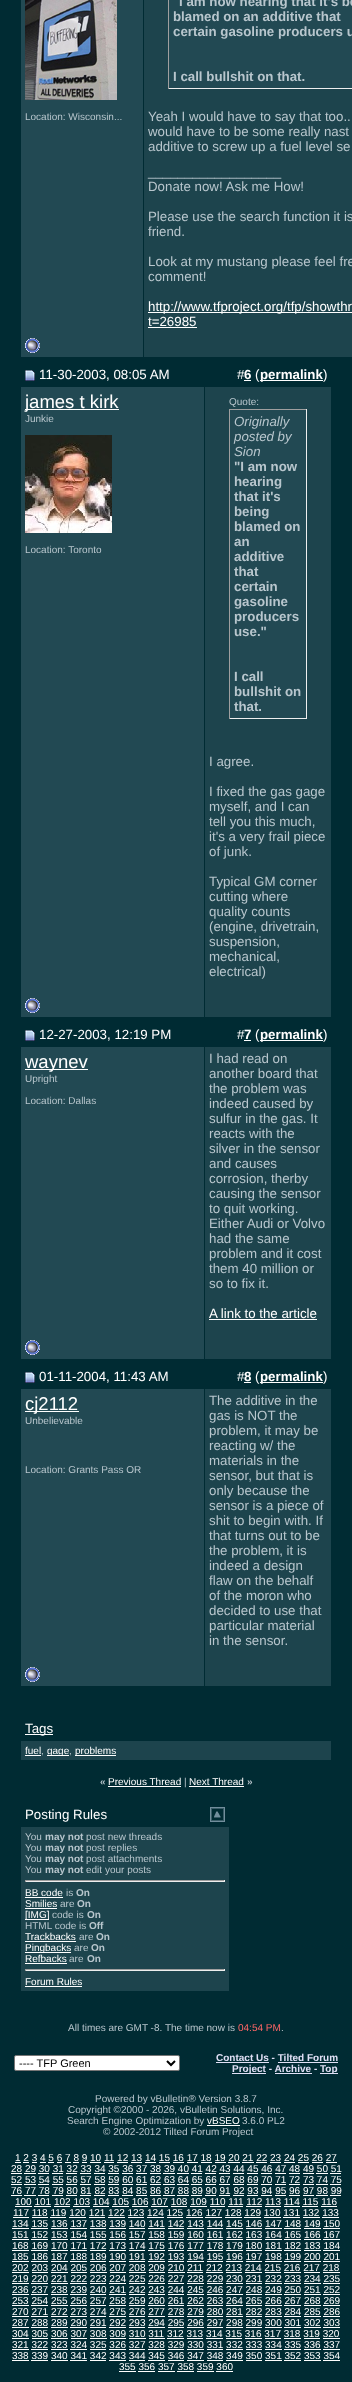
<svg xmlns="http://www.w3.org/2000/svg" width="352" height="2382">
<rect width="100%" height="100%" fill="#002b33"/>
<rect x="21" width="122" height="357" fill="#224953"/>
<image x="25" y="0" width="92" height="100" href="media/1.png"/>
<text x="25" y="120" style="font-family:Liberation Sans;font-size:10px;fill:#b8c6cd">Location: Wisconsin...</text>
<rect x="144" width="208" height="357" fill="#1d444d"/>
<rect x="169" width="183" height="88" fill="#224953"/>
<rect x="168" y="88" width="184" height="1" fill="#eee"/>
<rect x="168" width="1" height="89" fill="#9f9f9f"/>
<text x="179" y="6" style="font-family:Liberation Sans;font-size:13.3px;font-weight:bold;fill:#b8c6cd">I am now hearing that it's be</text>
<text x="173" y="21" style="font-family:Liberation Sans;font-size:13.3px;font-weight:bold;fill:#b8c6cd">blamed on an additive that</text>
<text x="173" y="36" style="font-family:Liberation Sans;font-size:13.3px;font-weight:bold;fill:#b8c6cd">certain gasoline producers u</text>
<text x="173" y="81" style="font-family:Liberation Sans;font-size:13.3px;font-weight:bold;fill:#b8c6cd">I call bullshit on that.</text>
<text x="148" y="121" style="font-family:Liberation Sans;font-size:13.3px;fill:#b8c6cd">Yeah I would have to say that too..</text>
<text x="148" y="136" style="font-family:Liberation Sans;font-size:13.3px;fill:#b8c6cd">would have to be some really nast</text>
<text x="148" y="151" style="font-family:Liberation Sans;font-size:13.3px;fill:#b8c6cd">additive to screw up a fuel level se</text>
<text x="148" y="176" style="font-family:Liberation Sans;font-size:13.3px;fill:#b8c6cd">__________________</text>
<text x="148" y="191" style="font-family:Liberation Sans;font-size:13.3px;fill:#b8c6cd">Donate now! Ask me How!</text>
<text x="148" y="221" style="font-family:Liberation Sans;font-size:13.3px;fill:#b8c6cd">Please use the search function it is</text>
<text x="148" y="236" style="font-family:Liberation Sans;font-size:13.3px;fill:#b8c6cd">friend.</text>
<text x="148" y="266" style="font-family:Liberation Sans;font-size:13.3px;fill:#b8c6cd">Look at my mustang please feel fre</text>
<text x="148" y="281" style="font-family:Liberation Sans;font-size:13.3px;fill:#b8c6cd">comment!</text>
<rect x="148" y="312" width="204" height="1" fill="#fff"/>
<text x="148" y="311" style="font-family:Liberation Sans;font-size:13.3px;fill:#fff">http://www.tfproject.org/tfp/showthr</text>
<text x="148" y="326" style="font-family:Liberation Sans;font-size:13.3px;fill:#fff">t=26985</text>
<rect x="148" y="327" width="49" height="1" fill="#fff"/>
<image x="25" y="338" width="15" height="15" href="media/2.png"/>
<image x="25" y="370" width="10" height="11" href="media/3.png"/>
<text x="39" y="379" style="font-family:Liberation Sans;font-size:13.3px;fill:#fff">11-30-2003, 08:05 AM</text>
<text x="237" y="379" style="font-family:Liberation Sans;font-size:13.3px;fill:#fff">#</text>
<text x="244" y="379" style="font-family:Liberation Sans;font-size:13.3px;font-weight:bold;fill:#fff">6</text>
<rect x="244" y="380" width="7" height="1" fill="#fff"/>
<text x="255" y="379" style="font-family:Liberation Sans;font-size:13.3px;fill:#fff">(</text>
<rect x="260" y="380" width="63" height="1" fill="#fff"/>
<text x="260" y="379" style="font-family:Liberation Sans;font-size:13.3px;font-weight:bold;fill:#fff">permalink</text>
<text x="323" y="379" style="font-family:Liberation Sans;font-size:13.3px;fill:#fff">)</text>
<rect x="21" y="387" width="183" height="630" fill="#224953"/>
<rect x="25" y="409" width="94" height="1" fill="#fff"/>
<text x="25" y="408" style="font-family:Liberation Sans;font-size:18.5px;fill:#fff">james t kirk</text>
<text x="25" y="422" style="font-family:Liberation Sans;font-size:10px;fill:#b8c6cd">Junkie</text>
<image x="25" y="435" width="87" height="98" href="media/4.png"/>
<text x="25" y="553" style="font-family:Liberation Sans;font-size:10px;fill:#b8c6cd">Location: Toronto</text>
<rect x="205" y="387" width="126" height="630" fill="#1d444d"/>
<text x="229" y="405" style="font-family:Liberation Sans;font-size:10px;fill:#b8c6cd">Quote:</text>
<rect x="230" y="410" width="76" height="308" fill="#224953"/>
<rect x="229" y="409" width="78" height="1" fill="#9f9f9f"/>
<rect x="306" y="409" width="1" height="310" fill="#eee"/>
<rect x="229" y="718" width="78" height="1" fill="#eee"/>
<rect x="229" y="409" width="1" height="310" fill="#9f9f9f"/>
<text x="234" y="426" style="font-family:Liberation Sans;font-size:13.3px;font-style:italic;fill:#b8c6cd">Originally</text>
<text x="234" y="441" style="font-family:Liberation Sans;font-size:13.3px;font-style:italic;fill:#b8c6cd">posted by</text>
<text x="234" y="456" style="font-family:Liberation Sans;font-size:13.3px;font-style:italic;fill:#b8c6cd">Sion</text>
<text x="234" y="471" style="font-family:Liberation Sans;font-size:13.3px;font-weight:bold;fill:#b8c6cd">"I am now</text>
<text x="234" y="486" style="font-family:Liberation Sans;font-size:13.3px;font-weight:bold;fill:#b8c6cd">hearing</text>
<text x="234" y="501" style="font-family:Liberation Sans;font-size:13.3px;font-weight:bold;fill:#b8c6cd">that it's</text>
<text x="234" y="516" style="font-family:Liberation Sans;font-size:13.3px;font-weight:bold;fill:#b8c6cd">being</text>
<text x="234" y="531" style="font-family:Liberation Sans;font-size:13.3px;font-weight:bold;fill:#b8c6cd">blamed on</text>
<text x="234" y="546" style="font-family:Liberation Sans;font-size:13.3px;font-weight:bold;fill:#b8c6cd">an</text>
<text x="234" y="561" style="font-family:Liberation Sans;font-size:13.3px;font-weight:bold;fill:#b8c6cd">additive</text>
<text x="234" y="576" style="font-family:Liberation Sans;font-size:13.3px;font-weight:bold;fill:#b8c6cd">that</text>
<text x="234" y="591" style="font-family:Liberation Sans;font-size:13.3px;font-weight:bold;fill:#b8c6cd">certain</text>
<text x="234" y="606" style="font-family:Liberation Sans;font-size:13.3px;font-weight:bold;fill:#b8c6cd">gasoline</text>
<text x="234" y="621" style="font-family:Liberation Sans;font-size:13.3px;font-weight:bold;fill:#b8c6cd">producers</text>
<text x="234" y="636" style="font-family:Liberation Sans;font-size:13.3px;font-weight:bold;fill:#b8c6cd">use."</text>
<text x="234" y="681" style="font-family:Liberation Sans;font-size:13.3px;font-weight:bold;fill:#b8c6cd">I call</text>
<text x="234" y="696" style="font-family:Liberation Sans;font-size:13.3px;font-weight:bold;fill:#b8c6cd">bullshit on</text>
<text x="234" y="711" style="font-family:Liberation Sans;font-size:13.3px;font-weight:bold;fill:#b8c6cd">that.</text>
<text x="209" y="766" style="font-family:Liberation Sans;font-size:13.3px;fill:#b8c6cd">I agree.</text>
<text x="209" y="796" style="font-family:Liberation Sans;font-size:13.3px;fill:#b8c6cd">I fixed the gas gage</text>
<text x="209" y="811" style="font-family:Liberation Sans;font-size:13.3px;fill:#b8c6cd">myself, and I can</text>
<text x="209" y="826" style="font-family:Liberation Sans;font-size:13.3px;fill:#b8c6cd">tell you this much,</text>
<text x="209" y="841" style="font-family:Liberation Sans;font-size:13.3px;fill:#b8c6cd">it's a very frail piece</text>
<text x="209" y="856" style="font-family:Liberation Sans;font-size:13.3px;fill:#b8c6cd">of junk.</text>
<text x="209" y="886" style="font-family:Liberation Sans;font-size:13.3px;fill:#b8c6cd">Typical GM corner</text>
<text x="209" y="901" style="font-family:Liberation Sans;font-size:13.3px;fill:#b8c6cd">cutting where</text>
<text x="209" y="916" style="font-family:Liberation Sans;font-size:13.3px;fill:#b8c6cd">quality counts</text>
<text x="209" y="931" style="font-family:Liberation Sans;font-size:13.3px;fill:#b8c6cd">(engine, drivetrain,</text>
<text x="209" y="946" style="font-family:Liberation Sans;font-size:13.3px;fill:#b8c6cd">suspension,</text>
<text x="209" y="961" style="font-family:Liberation Sans;font-size:13.3px;fill:#b8c6cd">mechanical,</text>
<text x="209" y="976" style="font-family:Liberation Sans;font-size:13.3px;fill:#b8c6cd">electrical)</text>
<image x="25" y="998" width="15" height="15" href="media/2.png"/>
<image x="25" y="1030" width="10" height="11" href="media/3.png"/>
<text x="39" y="1039" style="font-family:Liberation Sans;font-size:13.3px;fill:#fff">12-27-2003, 12:19 PM</text>
<text x="237" y="1039" style="font-family:Liberation Sans;font-size:13.3px;fill:#fff">#</text>
<text x="244" y="1039" style="font-family:Liberation Sans;font-size:13.3px;font-weight:bold;fill:#fff">7</text>
<rect x="244" y="1040" width="7" height="1" fill="#fff"/>
<text x="255" y="1039" style="font-family:Liberation Sans;font-size:13.3px;fill:#fff">(</text>
<rect x="260" y="1040" width="63" height="1" fill="#fff"/>
<text x="260" y="1039" style="font-family:Liberation Sans;font-size:13.3px;font-weight:bold;fill:#fff">permalink</text>
<text x="323" y="1039" style="font-family:Liberation Sans;font-size:13.3px;fill:#fff">)</text>
<rect x="21" y="1047" width="183" height="312" fill="#224953"/>
<rect x="25" y="1069" width="63" height="1" fill="#fff"/>
<text x="25" y="1068" style="font-family:Liberation Sans;font-size:18.5px;fill:#fff">waynev</text>
<text x="25" y="1082" style="font-family:Liberation Sans;font-size:10px;fill:#b8c6cd">Upright</text>
<text x="25" y="1104" style="font-family:Liberation Sans;font-size:10px;fill:#b8c6cd">Location: Dallas</text>
<rect x="205" y="1047" width="126" height="312" fill="#1d444d"/>
<text x="209" y="1063" style="font-family:Liberation Sans;font-size:13.3px;fill:#b8c6cd">I had read on</text>
<text x="209" y="1078" style="font-family:Liberation Sans;font-size:13.3px;fill:#b8c6cd">another board that</text>
<text x="209" y="1093" style="font-family:Liberation Sans;font-size:13.3px;fill:#b8c6cd">the problem was</text>
<text x="209" y="1108" style="font-family:Liberation Sans;font-size:13.3px;fill:#b8c6cd">indeed caused by</text>
<text x="209" y="1123" style="font-family:Liberation Sans;font-size:13.3px;fill:#b8c6cd">sulfur in the gas. It</text>
<text x="209" y="1138" style="font-family:Liberation Sans;font-size:13.3px;fill:#b8c6cd">reacts with the</text>
<text x="209" y="1153" style="font-family:Liberation Sans;font-size:13.3px;fill:#b8c6cd">silver in the sensor</text>
<text x="209" y="1168" style="font-family:Liberation Sans;font-size:13.3px;fill:#b8c6cd">and causes</text>
<text x="209" y="1183" style="font-family:Liberation Sans;font-size:13.3px;fill:#b8c6cd">corrosion, therby</text>
<text x="209" y="1198" style="font-family:Liberation Sans;font-size:13.3px;fill:#b8c6cd">causing the sensor</text>
<text x="209" y="1213" style="font-family:Liberation Sans;font-size:13.3px;fill:#b8c6cd">to quit working.</text>
<text x="209" y="1228" style="font-family:Liberation Sans;font-size:13.3px;fill:#b8c6cd">Either Audi or Volvo</text>
<text x="209" y="1243" style="font-family:Liberation Sans;font-size:13.3px;fill:#b8c6cd">had the same</text>
<text x="209" y="1258" style="font-family:Liberation Sans;font-size:13.3px;fill:#b8c6cd">problem and it cost</text>
<text x="209" y="1273" style="font-family:Liberation Sans;font-size:13.3px;fill:#b8c6cd">them 40 million or</text>
<text x="209" y="1288" style="font-family:Liberation Sans;font-size:13.3px;fill:#b8c6cd">so to fix it.</text>
<text x="209" y="1318" style="font-family:Liberation Sans;font-size:13.3px;fill:#fff">A link to the article</text>
<rect x="209" y="1319" width="108" height="1" fill="#fff"/>
<image x="25" y="1340" width="15" height="15" href="media/2.png"/>
<image x="25" y="1372" width="10" height="11" href="media/3.png"/>
<text x="39" y="1381" style="font-family:Liberation Sans;font-size:13.3px;fill:#fff">01-11-2004, 11:43 AM</text>
<text x="237" y="1381" style="font-family:Liberation Sans;font-size:13.3px;fill:#fff">#</text>
<text x="244" y="1381" style="font-family:Liberation Sans;font-size:13.3px;font-weight:bold;fill:#fff">8</text>
<rect x="244" y="1382" width="7" height="1" fill="#fff"/>
<text x="255" y="1381" style="font-family:Liberation Sans;font-size:13.3px;fill:#fff">(</text>
<rect x="260" y="1382" width="63" height="1" fill="#fff"/>
<text x="260" y="1381" style="font-family:Liberation Sans;font-size:13.3px;font-weight:bold;fill:#fff">permalink</text>
<text x="323" y="1381" style="font-family:Liberation Sans;font-size:13.3px;fill:#fff">)</text>
<rect x="21" y="1389" width="183" height="297" fill="#224953"/>
<rect x="25" y="1411" width="54" height="1" fill="#fff"/>
<text x="25" y="1410" style="font-family:Liberation Sans;font-size:18.5px;fill:#fff">cj2112</text>
<text x="25" y="1424" style="font-family:Liberation Sans;font-size:10px;fill:#b8c6cd">Unbelievable</text>
<text x="25" y="1473" style="font-family:Liberation Sans;font-size:10px;fill:#b8c6cd">Location: Grants Pass OR</text>
<rect x="205" y="1389" width="126" height="297" fill="#1d444d"/>
<text x="209" y="1405" style="font-family:Liberation Sans;font-size:13.3px;fill:#b8c6cd">The additive in the</text>
<text x="209" y="1420" style="font-family:Liberation Sans;font-size:13.3px;fill:#b8c6cd">gas is NOT the</text>
<text x="209" y="1435" style="font-family:Liberation Sans;font-size:13.3px;fill:#b8c6cd">problem, it may be</text>
<text x="209" y="1450" style="font-family:Liberation Sans;font-size:13.3px;fill:#b8c6cd">reacting w/ the</text>
<text x="209" y="1465" style="font-family:Liberation Sans;font-size:13.3px;fill:#b8c6cd">materials in the</text>
<text x="209" y="1480" style="font-family:Liberation Sans;font-size:13.3px;fill:#b8c6cd">sensor, but that is</text>
<text x="209" y="1495" style="font-family:Liberation Sans;font-size:13.3px;fill:#b8c6cd">only because the</text>
<text x="209" y="1510" style="font-family:Liberation Sans;font-size:13.3px;fill:#b8c6cd">sensor is a piece of</text>
<text x="209" y="1525" style="font-family:Liberation Sans;font-size:13.3px;fill:#b8c6cd">shit to begin with. If</text>
<text x="209" y="1540" style="font-family:Liberation Sans;font-size:13.3px;fill:#b8c6cd">that turns out to be</text>
<text x="209" y="1555" style="font-family:Liberation Sans;font-size:13.3px;fill:#b8c6cd">the problem, it is</text>
<text x="209" y="1570" style="font-family:Liberation Sans;font-size:13.3px;fill:#b8c6cd">indeed a design</text>
<text x="209" y="1585" style="font-family:Liberation Sans;font-size:13.3px;fill:#b8c6cd">flaw on the behalf</text>
<text x="209" y="1600" style="font-family:Liberation Sans;font-size:13.3px;fill:#b8c6cd">of the moron who</text>
<text x="209" y="1615" style="font-family:Liberation Sans;font-size:13.3px;fill:#b8c6cd">decided to use that</text>
<text x="209" y="1630" style="font-family:Liberation Sans;font-size:13.3px;fill:#b8c6cd">particular material</text>
<text x="209" y="1645" style="font-family:Liberation Sans;font-size:13.3px;fill:#b8c6cd">in the sensor.</text>
<image x="25" y="1667" width="15" height="15" href="media/2.png"/>
<rect x="25" y="1734" width="28" height="1" fill="#fff"/>
<text x="25" y="1733" style="font-family:Liberation Sans;font-size:13.3px;fill:#fff">Tags</text>
<rect x="21" y="1741" width="310" height="19" fill="#1d444d"/>
<text x="25" y="1754" style="font-family:Liberation Sans;font-size:10px;fill:#fff">fuel</text>
<rect x="25" y="1755" width="16" height="1" fill="#fff"/>
<text x="41" y="1754" style="font-family:Liberation Sans;font-size:10px;fill:#b8c6cd">,</text>
<rect x="47" y="1755" width="22" height="1" fill="#fff"/>
<text x="47" y="1754" style="font-family:Liberation Sans;font-size:10px;fill:#fff">gage</text>
<text x="69" y="1754" style="font-family:Liberation Sans;font-size:10px;fill:#b8c6cd">,</text>
<rect x="75" y="1755" width="41" height="1" fill="#fff"/>
<text x="75" y="1754" style="font-family:Liberation Sans;font-size:10px;fill:#fff">problems</text>
<text x="100" y="1785" style="font-family:Liberation Sans;font-size:10px;font-weight:bold;fill:#b8c6cd">«</text>
<text x="108" y="1785" style="font-family:Liberation Sans;font-size:10px;fill:#fff">Previous Thread</text>
<rect x="108" y="1786" width="73" height="1" fill="#fff"/>
<text x="184" y="1785" style="font-family:Liberation Sans;font-size:10px;fill:#b8c6cd">|</text>
<text x="189" y="1785" style="font-family:Liberation Sans;font-size:10px;fill:#fff">Next Thread</text>
<rect x="189" y="1786" width="55" height="1" fill="#fff"/>
<text x="247" y="1785" style="font-family:Liberation Sans;font-size:10px;font-weight:bold;fill:#b8c6cd">»</text>
<text x="25" y="1819" style="font-family:Liberation Sans;font-size:13.3px;fill:#fff">Posting Rules</text>
<image x="210" y="1807" width="15" height="15" href="media/5.png"/>
<rect x="21" y="1827" width="208" height="164" fill="#1d444d"/>
<text x="25" y="1840" style="font-family:Liberation Sans;font-size:10px;fill:#b8c6cd">You</text>
<text x="45" y="1840" style="font-family:Liberation Sans;font-size:10px;font-weight:bold;fill:#b8c6cd">may not</text>
<text x="86" y="1840" style="font-family:Liberation Sans;font-size:10px;fill:#b8c6cd">post new threads</text>
<text x="25" y="1851" style="font-family:Liberation Sans;font-size:10px;fill:#b8c6cd">You</text>
<text x="45" y="1851" style="font-family:Liberation Sans;font-size:10px;font-weight:bold;fill:#b8c6cd">may not</text>
<text x="86" y="1851" style="font-family:Liberation Sans;font-size:10px;fill:#b8c6cd">post replies</text>
<text x="25" y="1862" style="font-family:Liberation Sans;font-size:10px;fill:#b8c6cd">You</text>
<text x="45" y="1862" style="font-family:Liberation Sans;font-size:10px;font-weight:bold;fill:#b8c6cd">may not</text>
<text x="86" y="1862" style="font-family:Liberation Sans;font-size:10px;fill:#b8c6cd">post attachments</text>
<text x="25" y="1873" style="font-family:Liberation Sans;font-size:10px;fill:#b8c6cd">You</text>
<text x="45" y="1873" style="font-family:Liberation Sans;font-size:10px;font-weight:bold;fill:#b8c6cd">may not</text>
<text x="86" y="1873" style="font-family:Liberation Sans;font-size:10px;fill:#b8c6cd">edit your posts</text>
<rect x="25" y="1880" width="200" height="1" fill="#9f9f9f"/>
<rect x="224" y="1880" width="1" height="2" fill="#eee"/>
<rect x="25" y="1881" width="200" height="1" fill="#eee"/>
<rect x="25" y="1880" width="1" height="2" fill="#9f9f9f"/>
<text x="25" y="1896" style="font-family:Liberation Sans;font-size:10px;fill:#fff">BB code</text>
<rect x="25" y="1897" width="38" height="1" fill="#fff"/>
<text x="66" y="1896" style="font-family:Liberation Sans;font-size:10px;fill:#b8c6cd">is</text>
<text x="76" y="1896" style="font-family:Liberation Sans;font-size:10px;font-weight:bold;fill:#b8c6cd">On</text>
<text x="25" y="1907" style="font-family:Liberation Sans;font-size:10px;fill:#fff">Smilies</text>
<rect x="25" y="1908" width="32" height="1" fill="#fff"/>
<text x="60" y="1907" style="font-family:Liberation Sans;font-size:10px;fill:#b8c6cd">are</text>
<text x="77" y="1907" style="font-family:Liberation Sans;font-size:10px;font-weight:bold;fill:#b8c6cd">On</text>
<rect x="25" y="1919" width="24" height="1" fill="#fff"/>
<text x="25" y="1918" style="font-family:Liberation Sans;font-size:10px;fill:#fff">[IMG]</text>
<text x="52" y="1918" style="font-family:Liberation Sans;font-size:10px;fill:#b8c6cd">code is</text>
<text x="87" y="1918" style="font-family:Liberation Sans;font-size:10px;font-weight:bold;fill:#b8c6cd">On</text>
<text x="25" y="1929" style="font-family:Liberation Sans;font-size:10px;fill:#b8c6cd">HTML code is</text>
<text x="89" y="1929" style="font-family:Liberation Sans;font-size:10px;font-weight:bold;fill:#b8c6cd">Off</text>
<text x="25" y="1940" style="font-family:Liberation Sans;font-size:10px;fill:#fff">Trackbacks</text>
<rect x="25" y="1941" width="51" height="1" fill="#fff"/>
<text x="79" y="1940" style="font-family:Liberation Sans;font-size:10px;fill:#b8c6cd">are</text>
<text x="96" y="1940" style="font-family:Liberation Sans;font-size:10px;font-weight:bold;fill:#b8c6cd">On</text>
<rect x="25" y="1952" width="46" height="1" fill="#fff"/>
<text x="25" y="1951" style="font-family:Liberation Sans;font-size:10px;fill:#fff">Pingbacks</text>
<text x="74" y="1951" style="font-family:Liberation Sans;font-size:10px;fill:#b8c6cd">are</text>
<text x="91" y="1951" style="font-family:Liberation Sans;font-size:10px;font-weight:bold;fill:#b8c6cd">On</text>
<text x="25" y="1962" style="font-family:Liberation Sans;font-size:10px;fill:#fff">Refbacks</text>
<rect x="25" y="1963" width="42" height="1" fill="#fff"/>
<text x="69" y="1962" style="font-family:Liberation Sans;font-size:10px;fill:#b8c6cd">are</text>
<text x="87" y="1962" style="font-family:Liberation Sans;font-size:10px;font-weight:bold;fill:#b8c6cd">On</text>
<rect x="25" y="1969" width="200" height="1" fill="#9f9f9f"/>
<rect x="224" y="1969" width="1" height="2" fill="#eee"/>
<rect x="25" y="1970" width="200" height="1" fill="#eee"/>
<rect x="25" y="1969" width="1" height="2" fill="#9f9f9f"/>
<text x="25" y="1985" style="font-family:Liberation Sans;font-size:10px;fill:#fff">Forum Rules</text>
<rect x="25" y="1986" width="57" height="1" fill="#fff"/>
<text x="68" y="2031" style="font-family:Liberation Sans;font-size:10px;fill:#b8c6cd">All times are GMT -8. The time now is</text>
<text x="238" y="2031" style="font-family:Liberation Sans;font-size:10px;fill:#f66">04:54 PM</text>
<text x="281" y="2031" style="font-family:Liberation Sans;font-size:10px;fill:#b8c6cd">.</text>
<rect x="14.5" y="2055.5" width="165" height="15" rx="1.5" fill="#fff" stroke="#767676"/>
<path d="M167 2061l4 4l4-4" fill="none" stroke="#000" stroke-width="2"/>
<text x="19" y="2067" style="font-family:Liberation Sans;font-size:11px;fill:#000">---- TFP Green</text>
<text x="216" y="2061" style="font-family:Liberation Sans;font-size:10px;font-weight:bold;fill:#e0e0f6">Contact Us - Tilted Forum</text>
<rect x="216" y="2062" width="53" height="1" fill="#e0e0f6"/>
<rect x="278" y="2062" width="60" height="1" fill="#e0e0f6"/>
<rect x="232" y="2073" width="34" height="1" fill="#e0e0f6"/>
<text x="232" y="2072" style="font-family:Liberation Sans;font-size:10px;font-weight:bold;fill:#e0e0f6">Project - Archive -</text>
<rect x="275" y="2073" width="37" height="1" fill="#e0e0f6"/>
<rect x="320" y="2073" width="18" height="1" fill="#e0e0f6"/>
<text x="320" y="2072" style="font-family:Liberation Sans;font-size:10px;font-weight:bold;fill:#e0e0f6">Top</text>
<text x="95" y="2102" style="font-family:Liberation Sans;font-size:10px;fill:#b8c6cd">Powered by vBulletin® Version 3.8.7</text>
<text x="68" y="2113" style="font-family:Liberation Sans;font-size:10px;fill:#b8c6cd">Copyright ©2000 - 2026, vBulletin Solutions, Inc.</text>
<text x="67" y="2124" style="font-family:Liberation Sans;font-size:10px;fill:#b8c6cd">Search Engine Optimization by</text>
<text x="207" y="2124" style="font-family:Liberation Sans;font-size:10px;fill:#fff">vBSEO</text>
<rect x="207" y="2125" width="33" height="1" fill="#fff"/>
<text x="242" y="2124" style="font-family:Liberation Sans;font-size:10px;fill:#b8c6cd">3.6.0 PL2</text>
<text x="103" y="2135" style="font-family:Liberation Sans;font-size:10px;fill:#b8c6cd">© 2002-2012 Tilted Forum Project</text>
<text x="15" y="2161" style="font-family:Liberation Sans;font-size:10px;fill:#fff">1 2 3 4 5 6 7 8 9 10 11 12 13 14 15 16 17 18 19 20 21 22 23 24 25 26 27</text>
<rect x="15" y="2162" width="6" height="1" fill="#fff"/>
<rect x="23" y="2162" width="6" height="1" fill="#fff"/>
<rect x="32" y="2162" width="5" height="1" fill="#fff"/>
<rect x="40" y="2162" width="6" height="1" fill="#fff"/>
<rect x="48" y="2162" width="6" height="1" fill="#fff"/>
<rect x="57" y="2162" width="5" height="1" fill="#fff"/>
<rect x="65" y="2162" width="6" height="1" fill="#fff"/>
<rect x="73" y="2162" width="6" height="1" fill="#fff"/>
<rect x="82" y="2162" width="5" height="1" fill="#fff"/>
<rect x="90" y="2162" width="11" height="1" fill="#fff"/>
<rect x="104" y="2162" width="10" height="1" fill="#fff"/>
<rect x="117" y="2162" width="11" height="1" fill="#fff"/>
<rect x="131" y="2162" width="11" height="1" fill="#fff"/>
<rect x="145" y="2162" width="11" height="1" fill="#fff"/>
<rect x="159" y="2162" width="11" height="1" fill="#fff"/>
<rect x="173" y="2162" width="11" height="1" fill="#fff"/>
<rect x="187" y="2162" width="11" height="1" fill="#fff"/>
<rect x="201" y="2162" width="11" height="1" fill="#fff"/>
<rect x="215" y="2162" width="11" height="1" fill="#fff"/>
<rect x="228" y="2162" width="12" height="1" fill="#fff"/>
<rect x="242" y="2162" width="12" height="1" fill="#fff"/>
<rect x="256" y="2162" width="11" height="1" fill="#fff"/>
<rect x="270" y="2162" width="11" height="1" fill="#fff"/>
<rect x="284" y="2162" width="11" height="1" fill="#fff"/>
<rect x="298" y="2162" width="11" height="1" fill="#fff"/>
<rect x="312" y="2162" width="11" height="1" fill="#fff"/>
<rect x="326" y="2162" width="11" height="1" fill="#fff"/>
<text x="11" y="2172" style="font-family:Liberation Sans;font-size:10px;fill:#fff">28 29 30 31 32 33 34 35 36 37 38 39 40 41 42 43 44 45 46 47 48 49 50 51</text>
<rect x="11" y="2173" width="11" height="1" fill="#fff"/>
<rect x="24" y="2173" width="12" height="1" fill="#fff"/>
<rect x="38" y="2173" width="11" height="1" fill="#fff"/>
<rect x="52" y="2173" width="11" height="1" fill="#fff"/>
<rect x="66" y="2173" width="11" height="1" fill="#fff"/>
<rect x="80" y="2173" width="11" height="1" fill="#fff"/>
<rect x="94" y="2173" width="11" height="1" fill="#fff"/>
<rect x="108" y="2173" width="11" height="1" fill="#fff"/>
<rect x="122" y="2173" width="11" height="1" fill="#fff"/>
<rect x="136" y="2173" width="11" height="1" fill="#fff"/>
<rect x="150" y="2173" width="11" height="1" fill="#fff"/>
<rect x="163" y="2173" width="12" height="1" fill="#fff"/>
<rect x="177" y="2173" width="12" height="1" fill="#fff"/>
<rect x="191" y="2173" width="11" height="1" fill="#fff"/>
<rect x="205" y="2173" width="11" height="1" fill="#fff"/>
<rect x="219" y="2173" width="11" height="1" fill="#fff"/>
<rect x="233" y="2173" width="11" height="1" fill="#fff"/>
<rect x="247" y="2173" width="11" height="1" fill="#fff"/>
<rect x="261" y="2173" width="11" height="1" fill="#fff"/>
<rect x="275" y="2173" width="11" height="1" fill="#fff"/>
<rect x="289" y="2173" width="11" height="1" fill="#fff"/>
<rect x="303" y="2173" width="11" height="1" fill="#fff"/>
<rect x="316" y="2173" width="12" height="1" fill="#fff"/>
<rect x="330" y="2173" width="11" height="1" fill="#fff"/>
<text x="11" y="2183" style="font-family:Liberation Sans;font-size:10px;fill:#fff">52 53 54 55 56 57 58 59 60 61 62 63 64 65 66 67 68 69 70 71 72 73 74 75</text>
<rect x="11" y="2184" width="11" height="1" fill="#fff"/>
<rect x="24" y="2184" width="12" height="1" fill="#fff"/>
<rect x="38" y="2184" width="11" height="1" fill="#fff"/>
<rect x="52" y="2184" width="11" height="1" fill="#fff"/>
<rect x="66" y="2184" width="11" height="1" fill="#fff"/>
<rect x="80" y="2184" width="11" height="1" fill="#fff"/>
<rect x="94" y="2184" width="11" height="1" fill="#fff"/>
<rect x="108" y="2184" width="11" height="1" fill="#fff"/>
<rect x="122" y="2184" width="11" height="1" fill="#fff"/>
<rect x="136" y="2184" width="11" height="1" fill="#fff"/>
<rect x="150" y="2184" width="11" height="1" fill="#fff"/>
<rect x="163" y="2184" width="12" height="1" fill="#fff"/>
<rect x="177" y="2184" width="12" height="1" fill="#fff"/>
<rect x="191" y="2184" width="11" height="1" fill="#fff"/>
<rect x="205" y="2184" width="11" height="1" fill="#fff"/>
<rect x="219" y="2184" width="11" height="1" fill="#fff"/>
<rect x="233" y="2184" width="11" height="1" fill="#fff"/>
<rect x="247" y="2184" width="11" height="1" fill="#fff"/>
<rect x="261" y="2184" width="11" height="1" fill="#fff"/>
<rect x="275" y="2184" width="11" height="1" fill="#fff"/>
<rect x="289" y="2184" width="11" height="1" fill="#fff"/>
<rect x="303" y="2184" width="11" height="1" fill="#fff"/>
<rect x="316" y="2184" width="12" height="1" fill="#fff"/>
<rect x="330" y="2184" width="11" height="1" fill="#fff"/>
<text x="11" y="2194" style="font-family:Liberation Sans;font-size:10px;fill:#fff">76 77 78 79 80 81 82 83 84 85 86 87 88 89 90 91 92 93 94 95 96 97 98 99</text>
<rect x="11" y="2195" width="11" height="1" fill="#fff"/>
<rect x="24" y="2195" width="12" height="1" fill="#fff"/>
<rect x="38" y="2195" width="11" height="1" fill="#fff"/>
<rect x="52" y="2195" width="11" height="1" fill="#fff"/>
<rect x="66" y="2195" width="11" height="1" fill="#fff"/>
<rect x="80" y="2195" width="11" height="1" fill="#fff"/>
<rect x="94" y="2195" width="11" height="1" fill="#fff"/>
<rect x="108" y="2195" width="11" height="1" fill="#fff"/>
<rect x="122" y="2195" width="11" height="1" fill="#fff"/>
<rect x="136" y="2195" width="11" height="1" fill="#fff"/>
<rect x="150" y="2195" width="11" height="1" fill="#fff"/>
<rect x="163" y="2195" width="12" height="1" fill="#fff"/>
<rect x="177" y="2195" width="12" height="1" fill="#fff"/>
<rect x="191" y="2195" width="11" height="1" fill="#fff"/>
<rect x="205" y="2195" width="11" height="1" fill="#fff"/>
<rect x="219" y="2195" width="11" height="1" fill="#fff"/>
<rect x="233" y="2195" width="11" height="1" fill="#fff"/>
<rect x="247" y="2195" width="11" height="1" fill="#fff"/>
<rect x="261" y="2195" width="11" height="1" fill="#fff"/>
<rect x="275" y="2195" width="11" height="1" fill="#fff"/>
<rect x="289" y="2195" width="11" height="1" fill="#fff"/>
<rect x="303" y="2195" width="11" height="1" fill="#fff"/>
<rect x="316" y="2195" width="12" height="1" fill="#fff"/>
<rect x="330" y="2195" width="11" height="1" fill="#fff"/>
<text x="15" y="2205" style="font-family:Liberation Sans;font-size:10px;fill:#fff">100 101 102 103 104 105 106 107 108 109 110 111 112 113 114 115 116</text>
<rect x="15" y="2206" width="17" height="1" fill="#fff"/>
<rect x="34" y="2206" width="17" height="1" fill="#fff"/>
<rect x="54" y="2206" width="16" height="1" fill="#fff"/>
<rect x="73" y="2206" width="17" height="1" fill="#fff"/>
<rect x="93" y="2206" width="16" height="1" fill="#fff"/>
<rect x="112" y="2206" width="17" height="1" fill="#fff"/>
<rect x="132" y="2206" width="16" height="1" fill="#fff"/>
<rect x="151" y="2206" width="17" height="1" fill="#fff"/>
<rect x="171" y="2206" width="16" height="1" fill="#fff"/>
<rect x="190" y="2206" width="17" height="1" fill="#fff"/>
<rect x="210" y="2206" width="15" height="1" fill="#fff"/>
<rect x="228" y="2206" width="15" height="1" fill="#fff"/>
<rect x="246" y="2206" width="16" height="1" fill="#fff"/>
<rect x="265" y="2206" width="16" height="1" fill="#fff"/>
<rect x="284" y="2206" width="16" height="1" fill="#fff"/>
<rect x="302" y="2206" width="16" height="1" fill="#fff"/>
<rect x="321" y="2206" width="16" height="1" fill="#fff"/>
<text x="13" y="2216" style="font-family:Liberation Sans;font-size:10px;fill:#fff">117 118 119 120 121 122 123 124 125 126 127 128 129 130 131 132 133</text>
<rect x="13" y="2217" width="16" height="1" fill="#fff"/>
<rect x="32" y="2217" width="16" height="1" fill="#fff"/>
<rect x="50" y="2217" width="16" height="1" fill="#fff"/>
<rect x="69" y="2217" width="17" height="1" fill="#fff"/>
<rect x="89" y="2217" width="16" height="1" fill="#fff"/>
<rect x="108" y="2217" width="17" height="1" fill="#fff"/>
<rect x="128" y="2217" width="16" height="1" fill="#fff"/>
<rect x="147" y="2217" width="17" height="1" fill="#fff"/>
<rect x="167" y="2217" width="16" height="1" fill="#fff"/>
<rect x="186" y="2217" width="17" height="1" fill="#fff"/>
<rect x="205" y="2217" width="17" height="1" fill="#fff"/>
<rect x="225" y="2217" width="17" height="1" fill="#fff"/>
<rect x="244" y="2217" width="17" height="1" fill="#fff"/>
<rect x="264" y="2217" width="17" height="1" fill="#fff"/>
<rect x="283" y="2217" width="17" height="1" fill="#fff"/>
<rect x="303" y="2217" width="17" height="1" fill="#fff"/>
<rect x="322" y="2217" width="17" height="1" fill="#fff"/>
<text x="12" y="2227" style="font-family:Liberation Sans;font-size:10px;fill:#fff">134 135 136 137 138 139 140 141 142 143 144 145 146 147 148 149 150</text>
<rect x="12" y="2228" width="17" height="1" fill="#fff"/>
<rect x="31" y="2228" width="17" height="1" fill="#fff"/>
<rect x="51" y="2228" width="17" height="1" fill="#fff"/>
<rect x="70" y="2228" width="17" height="1" fill="#fff"/>
<rect x="90" y="2228" width="16" height="1" fill="#fff"/>
<rect x="109" y="2228" width="17" height="1" fill="#fff"/>
<rect x="129" y="2228" width="16" height="1" fill="#fff"/>
<rect x="148" y="2228" width="17" height="1" fill="#fff"/>
<rect x="168" y="2228" width="16" height="1" fill="#fff"/>
<rect x="187" y="2228" width="17" height="1" fill="#fff"/>
<rect x="207" y="2228" width="16" height="1" fill="#fff"/>
<rect x="226" y="2228" width="17" height="1" fill="#fff"/>
<rect x="246" y="2228" width="16" height="1" fill="#fff"/>
<rect x="265" y="2228" width="17" height="1" fill="#fff"/>
<rect x="284" y="2228" width="17" height="1" fill="#fff"/>
<rect x="304" y="2228" width="17" height="1" fill="#fff"/>
<rect x="323" y="2228" width="17" height="1" fill="#fff"/>
<text x="12" y="2238" style="font-family:Liberation Sans;font-size:10px;fill:#fff">151 152 153 154 155 156 157 158 159 160 161 162 163 164 165 166 167</text>
<rect x="12" y="2239" width="17" height="1" fill="#fff"/>
<rect x="31" y="2239" width="17" height="1" fill="#fff"/>
<rect x="51" y="2239" width="17" height="1" fill="#fff"/>
<rect x="70" y="2239" width="17" height="1" fill="#fff"/>
<rect x="90" y="2239" width="16" height="1" fill="#fff"/>
<rect x="109" y="2239" width="17" height="1" fill="#fff"/>
<rect x="129" y="2239" width="16" height="1" fill="#fff"/>
<rect x="148" y="2239" width="17" height="1" fill="#fff"/>
<rect x="168" y="2239" width="16" height="1" fill="#fff"/>
<rect x="187" y="2239" width="17" height="1" fill="#fff"/>
<rect x="207" y="2239" width="16" height="1" fill="#fff"/>
<rect x="226" y="2239" width="17" height="1" fill="#fff"/>
<rect x="246" y="2239" width="16" height="1" fill="#fff"/>
<rect x="265" y="2239" width="17" height="1" fill="#fff"/>
<rect x="284" y="2239" width="17" height="1" fill="#fff"/>
<rect x="304" y="2239" width="17" height="1" fill="#fff"/>
<rect x="323" y="2239" width="17" height="1" fill="#fff"/>
<text x="12" y="2249" style="font-family:Liberation Sans;font-size:10px;fill:#fff">168 169 170 171 172 173 174 175 176 177 178 179 180 181 182 183 184</text>
<rect x="12" y="2250" width="17" height="1" fill="#fff"/>
<rect x="31" y="2250" width="17" height="1" fill="#fff"/>
<rect x="51" y="2250" width="17" height="1" fill="#fff"/>
<rect x="70" y="2250" width="17" height="1" fill="#fff"/>
<rect x="90" y="2250" width="16" height="1" fill="#fff"/>
<rect x="109" y="2250" width="17" height="1" fill="#fff"/>
<rect x="129" y="2250" width="16" height="1" fill="#fff"/>
<rect x="148" y="2250" width="17" height="1" fill="#fff"/>
<rect x="168" y="2250" width="16" height="1" fill="#fff"/>
<rect x="187" y="2250" width="17" height="1" fill="#fff"/>
<rect x="207" y="2250" width="16" height="1" fill="#fff"/>
<rect x="226" y="2250" width="17" height="1" fill="#fff"/>
<rect x="246" y="2250" width="16" height="1" fill="#fff"/>
<rect x="265" y="2250" width="17" height="1" fill="#fff"/>
<rect x="284" y="2250" width="17" height="1" fill="#fff"/>
<rect x="304" y="2250" width="17" height="1" fill="#fff"/>
<rect x="323" y="2250" width="17" height="1" fill="#fff"/>
<text x="12" y="2260" style="font-family:Liberation Sans;font-size:10px;fill:#fff">185 186 187 188 189 190 191 192 193 194 195 196 197 198 199 200 201</text>
<rect x="12" y="2261" width="17" height="1" fill="#fff"/>
<rect x="31" y="2261" width="17" height="1" fill="#fff"/>
<rect x="51" y="2261" width="17" height="1" fill="#fff"/>
<rect x="70" y="2261" width="17" height="1" fill="#fff"/>
<rect x="90" y="2261" width="16" height="1" fill="#fff"/>
<rect x="109" y="2261" width="17" height="1" fill="#fff"/>
<rect x="129" y="2261" width="16" height="1" fill="#fff"/>
<rect x="148" y="2261" width="17" height="1" fill="#fff"/>
<rect x="168" y="2261" width="16" height="1" fill="#fff"/>
<rect x="187" y="2261" width="17" height="1" fill="#fff"/>
<rect x="207" y="2261" width="16" height="1" fill="#fff"/>
<rect x="226" y="2261" width="17" height="1" fill="#fff"/>
<rect x="246" y="2261" width="16" height="1" fill="#fff"/>
<rect x="265" y="2261" width="17" height="1" fill="#fff"/>
<rect x="284" y="2261" width="17" height="1" fill="#fff"/>
<rect x="304" y="2261" width="17" height="1" fill="#fff"/>
<rect x="323" y="2261" width="17" height="1" fill="#fff"/>
<text x="12" y="2271" style="font-family:Liberation Sans;font-size:10px;fill:#fff">202 203 204 205 206 207 208 209 210 211 212 213 214 215 216 217 218</text>
<rect x="12" y="2272" width="17" height="1" fill="#fff"/>
<rect x="32" y="2272" width="16" height="1" fill="#fff"/>
<rect x="51" y="2272" width="17" height="1" fill="#fff"/>
<rect x="71" y="2272" width="16" height="1" fill="#fff"/>
<rect x="90" y="2272" width="17" height="1" fill="#fff"/>
<rect x="110" y="2272" width="16" height="1" fill="#fff"/>
<rect x="129" y="2272" width="17" height="1" fill="#fff"/>
<rect x="149" y="2272" width="16" height="1" fill="#fff"/>
<rect x="168" y="2272" width="17" height="1" fill="#fff"/>
<rect x="187" y="2272" width="16" height="1" fill="#fff"/>
<rect x="206" y="2272" width="17" height="1" fill="#fff"/>
<rect x="226" y="2272" width="16" height="1" fill="#fff"/>
<rect x="245" y="2272" width="17" height="1" fill="#fff"/>
<rect x="265" y="2272" width="16" height="1" fill="#fff"/>
<rect x="284" y="2272" width="17" height="1" fill="#fff"/>
<rect x="304" y="2272" width="16" height="1" fill="#fff"/>
<rect x="323" y="2272" width="17" height="1" fill="#fff"/>
<text x="12" y="2282" style="font-family:Liberation Sans;font-size:10px;fill:#fff">219 220 221 222 223 224 225 226 227 228 229 230 231 232 233 234 235</text>
<rect x="12" y="2283" width="17" height="1" fill="#fff"/>
<rect x="31" y="2283" width="17" height="1" fill="#fff"/>
<rect x="51" y="2283" width="17" height="1" fill="#fff"/>
<rect x="70" y="2283" width="17" height="1" fill="#fff"/>
<rect x="90" y="2283" width="16" height="1" fill="#fff"/>
<rect x="109" y="2283" width="17" height="1" fill="#fff"/>
<rect x="129" y="2283" width="16" height="1" fill="#fff"/>
<rect x="148" y="2283" width="17" height="1" fill="#fff"/>
<rect x="168" y="2283" width="16" height="1" fill="#fff"/>
<rect x="187" y="2283" width="17" height="1" fill="#fff"/>
<rect x="207" y="2283" width="16" height="1" fill="#fff"/>
<rect x="226" y="2283" width="17" height="1" fill="#fff"/>
<rect x="246" y="2283" width="16" height="1" fill="#fff"/>
<rect x="265" y="2283" width="17" height="1" fill="#fff"/>
<rect x="284" y="2283" width="17" height="1" fill="#fff"/>
<rect x="304" y="2283" width="17" height="1" fill="#fff"/>
<rect x="323" y="2283" width="17" height="1" fill="#fff"/>
<text x="12" y="2293" style="font-family:Liberation Sans;font-size:10px;fill:#fff">236 237 238 239 240 241 242 243 244 245 246 247 248 249 250 251 252</text>
<rect x="12" y="2294" width="17" height="1" fill="#fff"/>
<rect x="31" y="2294" width="17" height="1" fill="#fff"/>
<rect x="51" y="2294" width="17" height="1" fill="#fff"/>
<rect x="70" y="2294" width="17" height="1" fill="#fff"/>
<rect x="90" y="2294" width="16" height="1" fill="#fff"/>
<rect x="109" y="2294" width="17" height="1" fill="#fff"/>
<rect x="129" y="2294" width="16" height="1" fill="#fff"/>
<rect x="148" y="2294" width="17" height="1" fill="#fff"/>
<rect x="168" y="2294" width="16" height="1" fill="#fff"/>
<rect x="187" y="2294" width="17" height="1" fill="#fff"/>
<rect x="207" y="2294" width="16" height="1" fill="#fff"/>
<rect x="226" y="2294" width="17" height="1" fill="#fff"/>
<rect x="246" y="2294" width="16" height="1" fill="#fff"/>
<rect x="265" y="2294" width="17" height="1" fill="#fff"/>
<rect x="284" y="2294" width="17" height="1" fill="#fff"/>
<rect x="304" y="2294" width="17" height="1" fill="#fff"/>
<rect x="323" y="2294" width="17" height="1" fill="#fff"/>
<text x="12" y="2304" style="font-family:Liberation Sans;font-size:10px;fill:#fff">253 254 255 256 257 258 259 260 261 262 263 264 265 266 267 268 269</text>
<rect x="12" y="2305" width="17" height="1" fill="#fff"/>
<rect x="31" y="2305" width="17" height="1" fill="#fff"/>
<rect x="51" y="2305" width="17" height="1" fill="#fff"/>
<rect x="70" y="2305" width="17" height="1" fill="#fff"/>
<rect x="90" y="2305" width="16" height="1" fill="#fff"/>
<rect x="109" y="2305" width="17" height="1" fill="#fff"/>
<rect x="129" y="2305" width="16" height="1" fill="#fff"/>
<rect x="148" y="2305" width="17" height="1" fill="#fff"/>
<rect x="168" y="2305" width="16" height="1" fill="#fff"/>
<rect x="187" y="2305" width="17" height="1" fill="#fff"/>
<rect x="207" y="2305" width="16" height="1" fill="#fff"/>
<rect x="226" y="2305" width="17" height="1" fill="#fff"/>
<rect x="246" y="2305" width="16" height="1" fill="#fff"/>
<rect x="265" y="2305" width="17" height="1" fill="#fff"/>
<rect x="284" y="2305" width="17" height="1" fill="#fff"/>
<rect x="304" y="2305" width="17" height="1" fill="#fff"/>
<rect x="323" y="2305" width="17" height="1" fill="#fff"/>
<text x="12" y="2315" style="font-family:Liberation Sans;font-size:10px;fill:#fff">270 271 272 273 274 275 276 277 278 279 280 281 282 283 284 285 286</text>
<rect x="12" y="2316" width="17" height="1" fill="#fff"/>
<rect x="31" y="2316" width="17" height="1" fill="#fff"/>
<rect x="51" y="2316" width="17" height="1" fill="#fff"/>
<rect x="70" y="2316" width="17" height="1" fill="#fff"/>
<rect x="90" y="2316" width="16" height="1" fill="#fff"/>
<rect x="109" y="2316" width="17" height="1" fill="#fff"/>
<rect x="129" y="2316" width="16" height="1" fill="#fff"/>
<rect x="148" y="2316" width="17" height="1" fill="#fff"/>
<rect x="168" y="2316" width="16" height="1" fill="#fff"/>
<rect x="187" y="2316" width="17" height="1" fill="#fff"/>
<rect x="207" y="2316" width="16" height="1" fill="#fff"/>
<rect x="226" y="2316" width="17" height="1" fill="#fff"/>
<rect x="246" y="2316" width="16" height="1" fill="#fff"/>
<rect x="265" y="2316" width="17" height="1" fill="#fff"/>
<rect x="284" y="2316" width="17" height="1" fill="#fff"/>
<rect x="304" y="2316" width="17" height="1" fill="#fff"/>
<rect x="323" y="2316" width="17" height="1" fill="#fff"/>
<text x="12" y="2326" style="font-family:Liberation Sans;font-size:10px;fill:#fff">287 288 289 290 291 292 293 294 295 296 297 298 299 300 301 302 303</text>
<rect x="12" y="2327" width="17" height="1" fill="#fff"/>
<rect x="31" y="2327" width="17" height="1" fill="#fff"/>
<rect x="51" y="2327" width="17" height="1" fill="#fff"/>
<rect x="70" y="2327" width="17" height="1" fill="#fff"/>
<rect x="90" y="2327" width="16" height="1" fill="#fff"/>
<rect x="109" y="2327" width="17" height="1" fill="#fff"/>
<rect x="129" y="2327" width="16" height="1" fill="#fff"/>
<rect x="148" y="2327" width="17" height="1" fill="#fff"/>
<rect x="168" y="2327" width="16" height="1" fill="#fff"/>
<rect x="187" y="2327" width="17" height="1" fill="#fff"/>
<rect x="207" y="2327" width="16" height="1" fill="#fff"/>
<rect x="226" y="2327" width="17" height="1" fill="#fff"/>
<rect x="246" y="2327" width="16" height="1" fill="#fff"/>
<rect x="265" y="2327" width="17" height="1" fill="#fff"/>
<rect x="284" y="2327" width="17" height="1" fill="#fff"/>
<rect x="304" y="2327" width="17" height="1" fill="#fff"/>
<rect x="323" y="2327" width="17" height="1" fill="#fff"/>
<text x="12" y="2337" style="font-family:Liberation Sans;font-size:10px;fill:#fff">304 305 306 307 308 309 310 311 312 313 314 315 316 317 318 319 320</text>
<rect x="12" y="2338" width="17" height="1" fill="#fff"/>
<rect x="32" y="2338" width="16" height="1" fill="#fff"/>
<rect x="51" y="2338" width="17" height="1" fill="#fff"/>
<rect x="71" y="2338" width="16" height="1" fill="#fff"/>
<rect x="90" y="2338" width="17" height="1" fill="#fff"/>
<rect x="110" y="2338" width="16" height="1" fill="#fff"/>
<rect x="129" y="2338" width="17" height="1" fill="#fff"/>
<rect x="149" y="2338" width="16" height="1" fill="#fff"/>
<rect x="167" y="2338" width="17" height="1" fill="#fff"/>
<rect x="187" y="2338" width="16" height="1" fill="#fff"/>
<rect x="206" y="2338" width="17" height="1" fill="#fff"/>
<rect x="226" y="2338" width="16" height="1" fill="#fff"/>
<rect x="245" y="2338" width="17" height="1" fill="#fff"/>
<rect x="265" y="2338" width="16" height="1" fill="#fff"/>
<rect x="284" y="2338" width="17" height="1" fill="#fff"/>
<rect x="304" y="2338" width="16" height="1" fill="#fff"/>
<rect x="323" y="2338" width="17" height="1" fill="#fff"/>
<text x="12" y="2348" style="font-family:Liberation Sans;font-size:10px;fill:#fff">321 322 323 324 325 326 327 328 329 330 331 332 333 334 335 336 337</text>
<rect x="12" y="2349" width="17" height="1" fill="#fff"/>
<rect x="31" y="2349" width="17" height="1" fill="#fff"/>
<rect x="51" y="2349" width="17" height="1" fill="#fff"/>
<rect x="70" y="2349" width="17" height="1" fill="#fff"/>
<rect x="90" y="2349" width="16" height="1" fill="#fff"/>
<rect x="109" y="2349" width="17" height="1" fill="#fff"/>
<rect x="129" y="2349" width="16" height="1" fill="#fff"/>
<rect x="148" y="2349" width="17" height="1" fill="#fff"/>
<rect x="168" y="2349" width="16" height="1" fill="#fff"/>
<rect x="187" y="2349" width="17" height="1" fill="#fff"/>
<rect x="207" y="2349" width="16" height="1" fill="#fff"/>
<rect x="226" y="2349" width="17" height="1" fill="#fff"/>
<rect x="246" y="2349" width="16" height="1" fill="#fff"/>
<rect x="265" y="2349" width="17" height="1" fill="#fff"/>
<rect x="284" y="2349" width="17" height="1" fill="#fff"/>
<rect x="304" y="2349" width="17" height="1" fill="#fff"/>
<rect x="323" y="2349" width="17" height="1" fill="#fff"/>
<text x="12" y="2359" style="font-family:Liberation Sans;font-size:10px;fill:#fff">338 339 340 341 342 343 344 345 346 347 348 349 350 351 352 353 354</text>
<rect x="12" y="2360" width="17" height="1" fill="#fff"/>
<rect x="31" y="2360" width="17" height="1" fill="#fff"/>
<rect x="51" y="2360" width="17" height="1" fill="#fff"/>
<rect x="70" y="2360" width="17" height="1" fill="#fff"/>
<rect x="90" y="2360" width="16" height="1" fill="#fff"/>
<rect x="109" y="2360" width="17" height="1" fill="#fff"/>
<rect x="129" y="2360" width="16" height="1" fill="#fff"/>
<rect x="148" y="2360" width="17" height="1" fill="#fff"/>
<rect x="168" y="2360" width="16" height="1" fill="#fff"/>
<rect x="187" y="2360" width="17" height="1" fill="#fff"/>
<rect x="207" y="2360" width="16" height="1" fill="#fff"/>
<rect x="226" y="2360" width="17" height="1" fill="#fff"/>
<rect x="246" y="2360" width="16" height="1" fill="#fff"/>
<rect x="265" y="2360" width="17" height="1" fill="#fff"/>
<rect x="284" y="2360" width="17" height="1" fill="#fff"/>
<rect x="304" y="2360" width="17" height="1" fill="#fff"/>
<rect x="323" y="2360" width="17" height="1" fill="#fff"/>
<text x="119" y="2370" style="font-family:Liberation Sans;font-size:10px;fill:#fff">355 356 357 358 359 360</text>
<rect x="119" y="2371" width="17" height="1" fill="#fff"/>
<rect x="138" y="2371" width="17" height="1" fill="#fff"/>
<rect x="158" y="2371" width="17" height="1" fill="#fff"/>
<rect x="177" y="2371" width="17" height="1" fill="#fff"/>
<rect x="197" y="2371" width="17" height="1" fill="#fff"/>
<rect x="216" y="2371" width="17" height="1" fill="#fff"/>
</svg>
